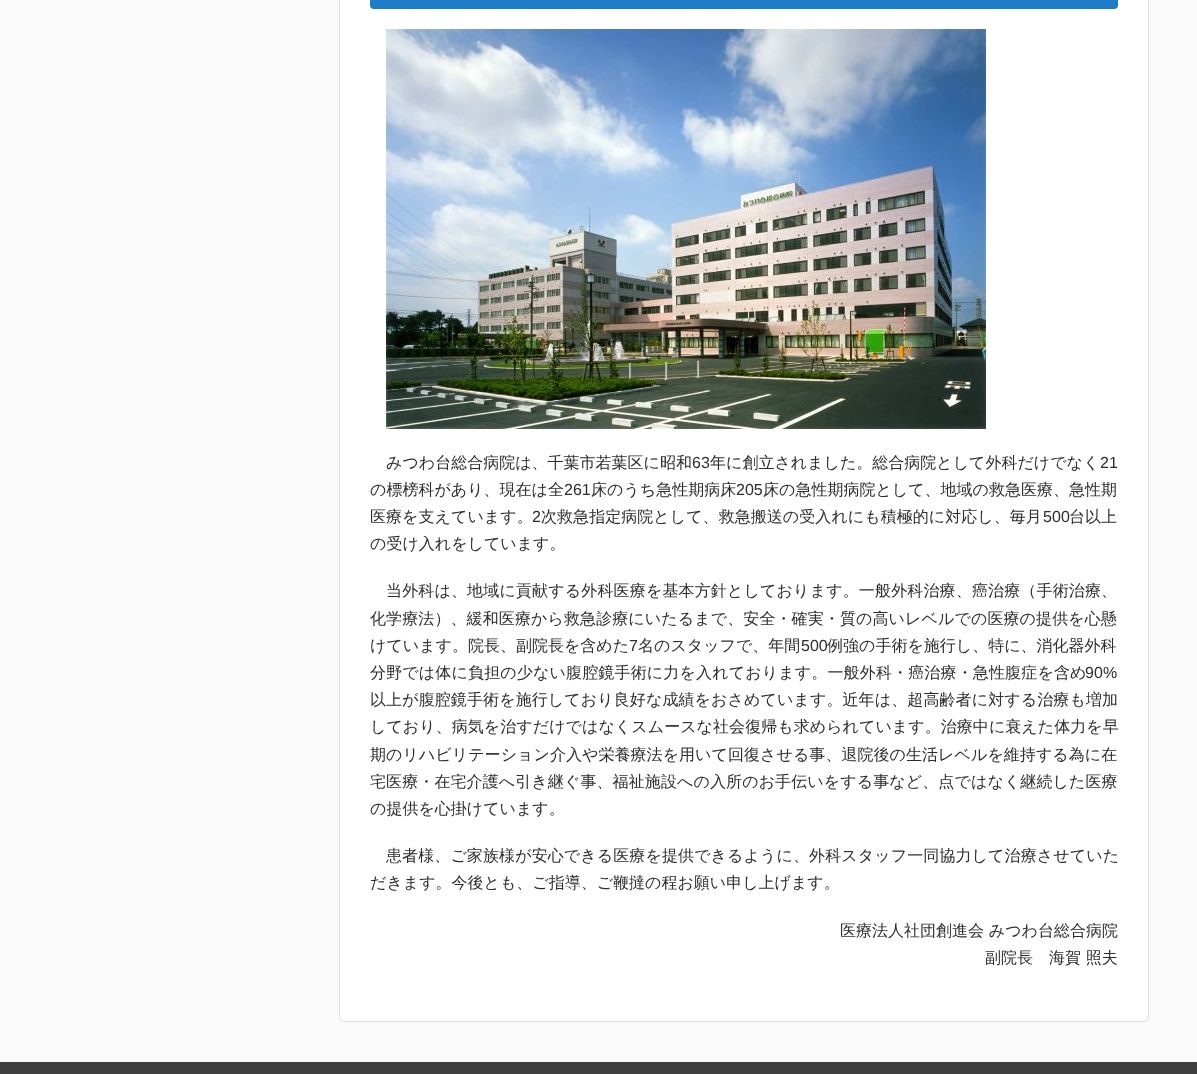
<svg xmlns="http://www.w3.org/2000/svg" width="1197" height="1074">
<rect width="100%" height="100%" fill="#fafafa"/>
<rect x="339.5" y="-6.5" width="809" height="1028" rx="5.5" fill="#fff" stroke="#ddd"/>
<rect x="370" y="-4" width="748" height="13" rx="4" fill="#1c7ec8"/>
<image x="386" y="29" width="600" height="400" href="media/1.png"/>
<text x="386" y="468" style="font-family:WenQuanYi Zen Hei;font-size:16px;font-weight:500;fill:#2d2d2d">みつわ台総合病院は、千葉市若葉区に昭和</text>
<text x="692" y="468" style="font-family:Liberation Sans;font-size:16px;fill:#2d2d2d">63</text>
<text x="710" y="468" style="font-family:WenQuanYi Zen Hei;font-size:16px;font-weight:500;fill:#2d2d2d">年に創立されました。総合病院として外科だけでなく</text>
<text x="1100" y="468" style="font-family:Liberation Sans;font-size:16px;fill:#2d2d2d">21</text>
<text x="370" y="495" style="font-family:WenQuanYi Zen Hei;font-size:16px;font-weight:500;fill:#2d2d2d">の標榜科があり、現在は全</text>
<text x="564" y="495" style="font-family:Liberation Sans;font-size:16px;fill:#2d2d2d">261</text>
<text x="591" y="495" style="font-family:WenQuanYi Zen Hei;font-size:16px;font-weight:500;fill:#2d2d2d">床のうち急性期病床</text>
<text x="736" y="495" style="font-family:Liberation Sans;font-size:16px;fill:#2d2d2d">205</text>
<text x="763" y="495" style="font-family:WenQuanYi Zen Hei;font-size:16px;font-weight:500;fill:#2d2d2d">床の急性期病院として、地域の救急医療、急性期</text>
<text x="370" y="522" style="font-family:WenQuanYi Zen Hei;font-size:16px;font-weight:500;letter-spacing:0.05px;fill:#2d2d2d">医療を支えています。</text>
<text x="532" y="522" style="font-family:Liberation Sans;font-size:16px;letter-spacing:0.05px;fill:#2d2d2d">2</text>
<text x="541" y="522" style="font-family:WenQuanYi Zen Hei;font-size:16px;font-weight:500;letter-spacing:0.05px;fill:#2d2d2d">次救急指定病院として、救急搬送の受入れにも積極的に対応し、毎月</text>
<text x="1043" y="522" style="font-family:Liberation Sans;font-size:16px;letter-spacing:0.05px;fill:#2d2d2d">500</text>
<text x="1069" y="522" style="font-family:WenQuanYi Zen Hei;font-size:16px;font-weight:500;letter-spacing:0.05px;fill:#2d2d2d">台以上</text>
<text x="370" y="549" style="font-family:WenQuanYi Zen Hei;font-size:16px;font-weight:500;fill:#2d2d2d">の受け入れをしています。</text>
<text x="386" y="596" style="font-family:WenQuanYi Zen Hei;font-size:16px;font-weight:500;letter-spacing:0.15px;fill:#2d2d2d">当外科は、地域に貢献する外科医療を基本方針としております。一般外科治療、癌治療（手術治療、</text>
<text x="370" y="624" style="font-family:WenQuanYi Zen Hei;font-size:16px;font-weight:500;letter-spacing:0.1px;fill:#2d2d2d">化学療法）、緩和医療から救急診療にいたるまで、安全・確実・質の高いレベルでの医療の提供を心懸</text>
<text x="370" y="651" style="font-family:WenQuanYi Zen Hei;font-size:16px;font-weight:500;fill:#2d2d2d">けています。院長、副院長を含めた</text>
<text x="629" y="651" style="font-family:Liberation Sans;font-size:16px;fill:#2d2d2d">7</text>
<text x="638" y="651" style="font-family:WenQuanYi Zen Hei;font-size:16px;font-weight:500;fill:#2d2d2d">名のスタッフで、年間</text>
<text x="801" y="651" style="font-family:Liberation Sans;font-size:16px;fill:#2d2d2d">500</text>
<text x="827" y="651" style="font-family:WenQuanYi Zen Hei;font-size:16px;font-weight:500;fill:#2d2d2d">例強の手術を施行し、特に、消化器外科</text>
<text x="370" y="678" style="font-family:WenQuanYi Zen Hei;font-size:16px;font-weight:500;letter-spacing:0.15px;fill:#2d2d2d">分野では体に負担の少ない腹腔鏡手術に力を入れております。一般外科・癌治療・急性腹症を含め</text>
<text x="1085" y="678" style="font-family:Liberation Sans;font-size:16px;letter-spacing:0.15px;fill:#2d2d2d">90%</text>
<text x="370" y="705" style="font-family:WenQuanYi Zen Hei;font-size:16px;font-weight:500;letter-spacing:0.1px;fill:#2d2d2d">以上が腹腔鏡手術を施行しており良好な成績をおさめています。近年は、超高齢者に対する治療も増加</text>
<text x="370" y="732" style="font-family:WenQuanYi Zen Hei;font-size:16px;font-weight:500;letter-spacing:0.05px;fill:#2d2d2d">しており、病気を治すだけではなくスムースな社会復帰も求められています。治療中に衰えた体力を早</text>
<text x="370" y="760" style="font-family:WenQuanYi Zen Hei;font-size:16px;font-weight:500;letter-spacing:0.05px;fill:#2d2d2d">期のリハビリテーション介入や栄養療法を用いて回復させる事、退院後の生活レベルを維持する為に在</text>
<text x="370" y="787" style="font-family:WenQuanYi Zen Hei;font-size:16px;font-weight:500;letter-spacing:0.1px;fill:#2d2d2d">宅医療・在宅介護へ引き継ぐ事、福祉施設への入所のお手伝いをする事など、点ではなく継続した医療</text>
<text x="370" y="814" style="font-family:WenQuanYi Zen Hei;font-size:16px;font-weight:500;fill:#2d2d2d">の提供を心掛けています。</text>
<text x="386" y="861" style="font-family:WenQuanYi Zen Hei;font-size:16px;font-weight:500;letter-spacing:0.1px;fill:#2d2d2d">患者様、ご家族様が安心できる医療を提供できるように、外科スタッフ一同協力して治療させていた</text>
<text x="370" y="888" style="font-family:WenQuanYi Zen Hei;font-size:16px;font-weight:500;fill:#2d2d2d">だきます。今後とも、ご指導、ご鞭撻の程お願い申し上げます。</text>
<text x="840" y="936" style="font-family:WenQuanYi Zen Hei;font-size:16px;font-weight:500;fill:#2d2d2d">医療法人社団創進会 みつわ台総合病院</text>
<text x="985" y="963" style="font-family:WenQuanYi Zen Hei;font-size:16px;font-weight:500;fill:#2d2d2d">副院長　海賀 照夫</text>
<rect y="1062" width="1197" height="12" fill="#3f3f3f"/>
</svg>
